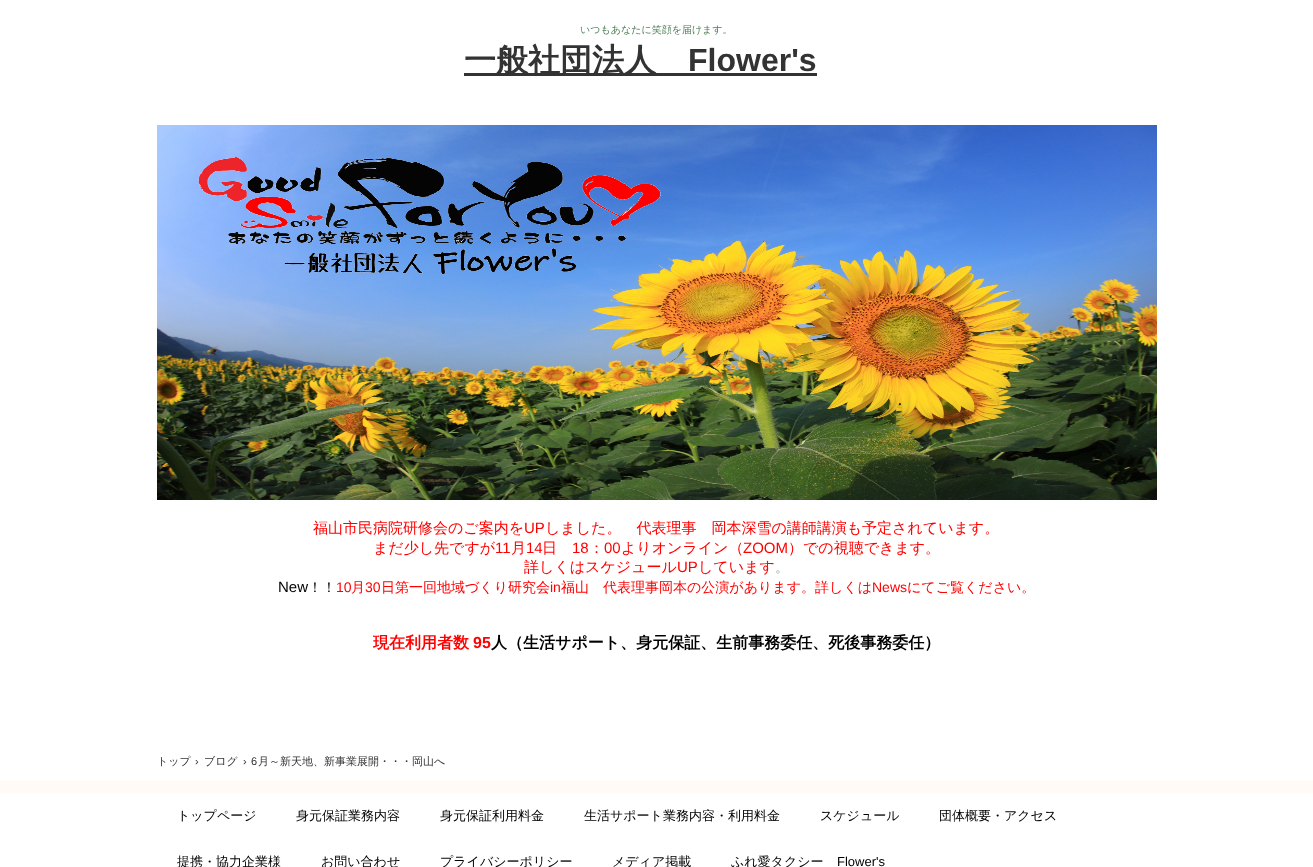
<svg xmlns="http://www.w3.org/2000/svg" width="1313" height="867">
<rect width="100%" height="100%" fill="#fffaf5"/>
<rect width="1313" height="781" fill="#fff"/>
<text x="580" y="33" style="font-family:WenQuanYi Zen Hei;font-size:10px;font-weight:500;fill:#4e7e58">いつもあなたに笑顔を届けます。</text>
<rect x="464" y="73" width="353" height="3" fill="#333"/>
<text x="464" y="71" style="font-family:WenQuanYi Zen Hei;font-size:32px;font-weight:bold;fill:#333">一般社団法人</text>
<text x="688" y="71" style="font-family:Liberation Sans;font-size:32px;font-weight:bold;fill:#333">Flower's</text>
<image x="157" y="125" width="1000" height="375" href="media/1.png"/>
<text x="313" y="533" style="font-family:WenQuanYi Zen Hei;font-size:15px;font-weight:500;fill:#f00">福山市民病院研修会のご案内を</text>
<text x="524" y="533" style="font-family:Liberation Sans;font-size:15px;fill:#f00">UP</text>
<text x="545" y="533" style="font-family:WenQuanYi Zen Hei;font-size:15px;font-weight:500;fill:#f00">しました。　代表理事　岡本深雪の講師講演も予定されています。</text>
<text x="373" y="553" style="font-family:WenQuanYi Zen Hei;font-size:15px;font-weight:500;fill:#f00">まだ少し先ですが</text>
<text x="495" y="553" style="font-family:Liberation Sans;font-size:15px;fill:#f00">11</text>
<text x="511" y="553" style="font-family:WenQuanYi Zen Hei;font-size:15px;font-weight:500;fill:#f00">月</text>
<text x="526" y="553" style="font-family:Liberation Sans;font-size:15px;fill:#f00">14</text>
<text x="542" y="553" style="font-family:WenQuanYi Zen Hei;font-size:15px;font-weight:500;fill:#f00">日</text>
<text x="572" y="553" style="font-family:Liberation Sans;font-size:15px;fill:#f00">18</text>
<text x="589" y="553" style="font-family:WenQuanYi Zen Hei;font-size:15px;font-weight:500;fill:#f00">：</text>
<text x="604" y="553" style="font-family:Liberation Sans;font-size:15px;fill:#f00">00</text>
<text x="621" y="553" style="font-family:WenQuanYi Zen Hei;font-size:15px;font-weight:500;fill:#f00">よりオンライン（</text>
<text x="743" y="553" style="font-family:Liberation Sans;font-size:15px;fill:#f00">ZOOM</text>
<text x="788" y="553" style="font-family:WenQuanYi Zen Hei;font-size:15px;font-weight:500;fill:#f00">）での視聴できます。</text>
<text x="524" y="572" style="font-family:WenQuanYi Zen Hei;font-size:15px;font-weight:500;fill:#f00">詳しくはスケジュール</text>
<text x="677" y="572" style="font-family:Liberation Sans;font-size:15px;fill:#f00">UP</text>
<text x="698" y="572" style="font-family:WenQuanYi Zen Hei;font-size:15px;font-weight:500;fill:#f00">しています</text>
<text x="775" y="572" style="font-family:WenQuanYi Zen Hei;font-size:14px;font-weight:500;fill:#929292">。</text>
<text x="278" y="592" style="font-family:Liberation Sans;font-size:15px;fill:#000">New</text>
<text x="308" y="592" style="font-family:WenQuanYi Zen Hei;font-size:14px;font-weight:500;fill:#000">！！</text>
<text x="336" y="592" style="font-family:Liberation Sans;font-size:14px;fill:#f00">10</text>
<text x="351" y="592" style="font-family:WenQuanYi Zen Hei;font-size:14px;font-weight:500;fill:#f00">月</text>
<text x="365" y="592" style="font-family:Liberation Sans;font-size:14px;fill:#f00">30</text>
<text x="381" y="592" style="font-family:WenQuanYi Zen Hei;font-size:14px;font-weight:500;fill:#f00">日第一回地域づくり研究会</text>
<text x="550" y="592" style="font-family:Liberation Sans;font-size:14px;fill:#f00">in</text>
<text x="561" y="592" style="font-family:WenQuanYi Zen Hei;font-size:14px;font-weight:500;fill:#f00">福山　代表理事岡本の公演があります。詳しくは</text>
<text x="872" y="592" style="font-family:Liberation Sans;font-size:14px;fill:#f00">News</text>
<text x="907" y="592" style="font-family:WenQuanYi Zen Hei;font-size:14px;font-weight:500;fill:#f00">にてご覧ください。</text>
<text x="373" y="648" style="font-family:WenQuanYi Zen Hei;font-size:16px;font-weight:bold;fill:#f00">現在利用者数</text>
<text x="473" y="648" style="font-family:Liberation Sans;font-size:16px;font-weight:bold;fill:#f00">95</text>
<text x="491" y="648" style="font-family:WenQuanYi Zen Hei;font-size:16px;font-weight:bold;fill:#000">人（生活サポート、身元保証、生前事務委任、死後事務委任）</text>
<text x="157" y="765" style="font-family:WenQuanYi Zen Hei;font-size:11px;font-weight:500;fill:#333">トップ</text>
<text x="195" y="765" style="font-family:Liberation Sans;font-size:11px;fill:#333">›</text>
<text x="204" y="765" style="font-family:WenQuanYi Zen Hei;font-size:11px;font-weight:500;fill:#333">ブログ</text>
<text x="243" y="765" style="font-family:Liberation Sans;font-size:11px;fill:#333">›</text>
<text x="251" y="765" style="font-family:Liberation Sans;font-size:11px;fill:#333">6</text>
<text x="258" y="765" style="font-family:WenQuanYi Zen Hei;font-size:11px;font-weight:500;fill:#333">月～新天地、新事業展開・・・岡山へ</text>
<rect y="793" width="1313" height="74" fill="#fff"/>
<text x="177" y="820" style="font-family:WenQuanYi Zen Hei;font-size:13px;font-weight:500;fill:#000">トップページ</text>
<text x="296" y="820" style="font-family:WenQuanYi Zen Hei;font-size:13px;font-weight:500;fill:#000">身元保証業務内容</text>
<text x="440" y="820" style="font-family:WenQuanYi Zen Hei;font-size:13px;font-weight:500;fill:#000">身元保証利用料金</text>
<text x="584" y="820" style="font-family:WenQuanYi Zen Hei;font-size:13px;font-weight:500;fill:#000">生活サポート業務内容・利用料金</text>
<text x="820" y="820" style="font-family:WenQuanYi Zen Hei;font-size:13px;font-weight:500;fill:#000">スケジュール</text>
<text x="939" y="820" style="font-family:WenQuanYi Zen Hei;font-size:13px;font-weight:500;fill:#000">団体概要・アクセス</text>
<text x="177" y="866" style="font-family:WenQuanYi Zen Hei;font-size:13px;font-weight:500;fill:#000">提携・協力企業様</text>
<text x="321" y="866" style="font-family:WenQuanYi Zen Hei;font-size:13px;font-weight:500;fill:#000">お問い合わせ</text>
<text x="440" y="866" style="font-family:WenQuanYi Zen Hei;font-size:13px;font-weight:500;fill:#000">プライバシーポリシー</text>
<text x="612" y="866" style="font-family:WenQuanYi Zen Hei;font-size:13px;font-weight:500;fill:#000">メディア掲載</text>
<text x="731" y="866" style="font-family:WenQuanYi Zen Hei;font-size:13px;font-weight:500;fill:#000">ふれ愛タクシー</text>
<text x="837" y="866" style="font-family:Liberation Sans;font-size:13px;fill:#000">Flower's</text>
</svg>
